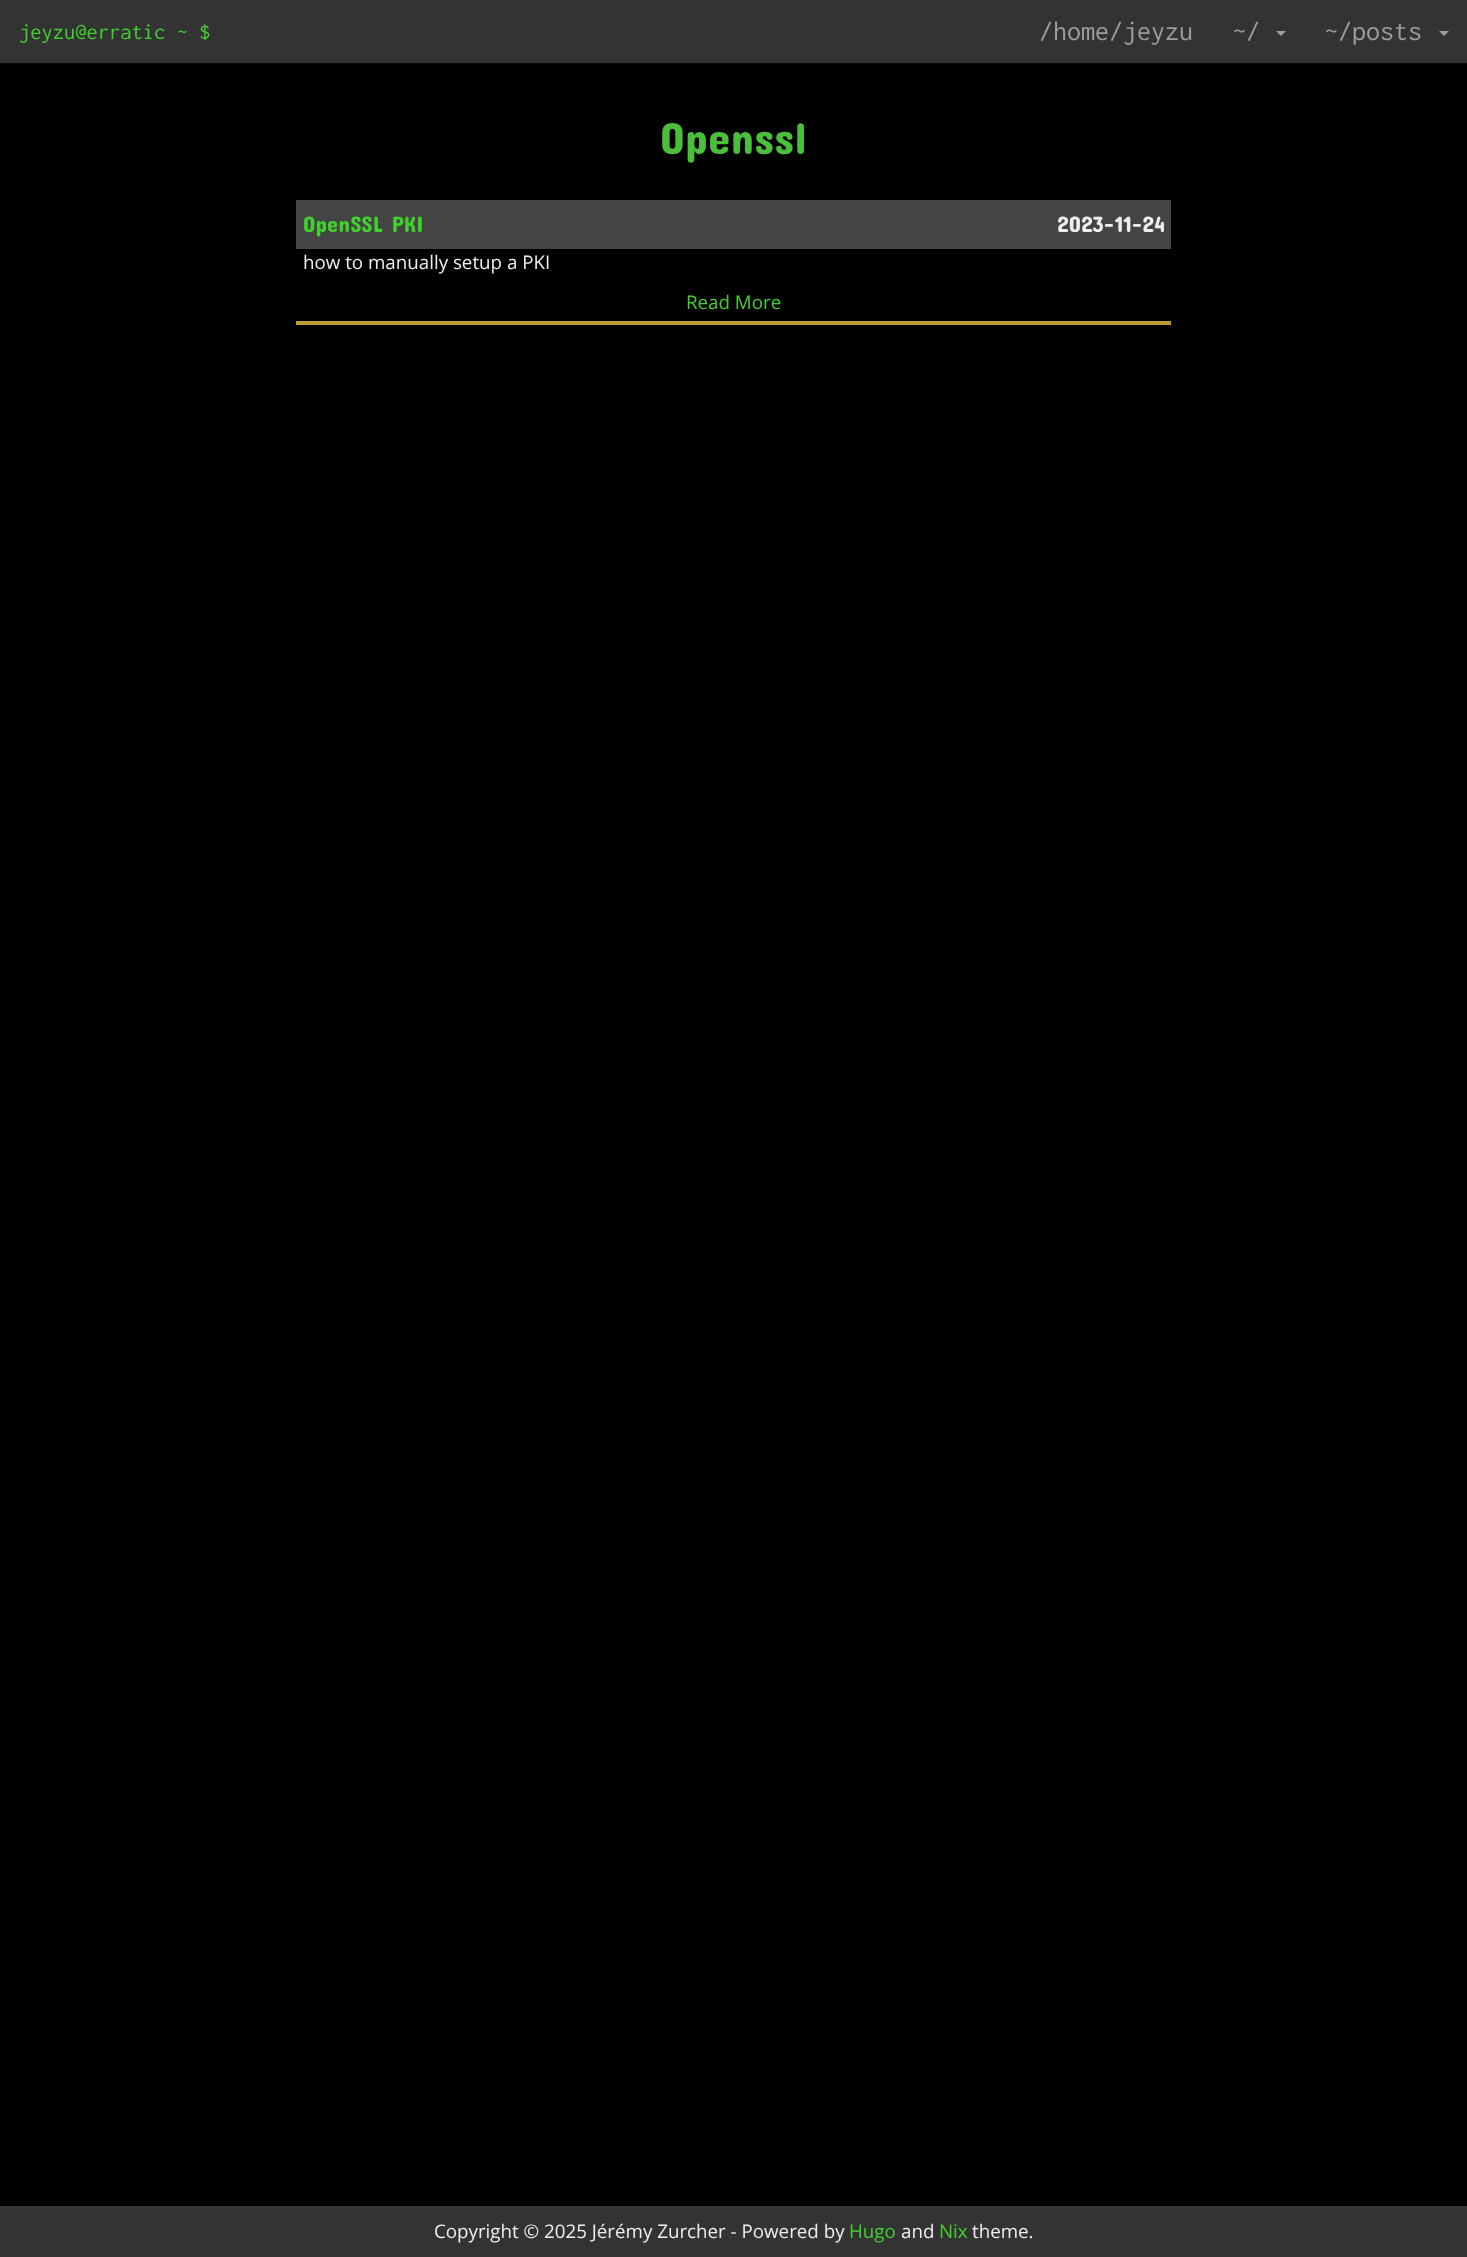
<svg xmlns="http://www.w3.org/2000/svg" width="1467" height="2257">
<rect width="100%" height="100%" fill="#000"/>
<rect width="1467" height="63" fill="#333"/>
<rect y="63" width="1467" height="1" fill="#080808"/>
<text x="19" y="39" style="font-family:Inconsolata;font-size:22.5px;fill:#41d12e">jeyzu@erratic ~ $</text>
<text x="1039" y="40" style="font-family:Inconsolata;font-size:28px;fill:#9d9d9d">/home/jeyzu</text>
<text x="1232" y="40" style="font-family:Inconsolata;font-size:28px;fill:#9d9d9d">~/</text>
<path d="M1276 31h10l-5 5z" fill="#9d9d9d"/>
<text x="1324" y="40" style="font-family:Inconsolata;font-size:28px;fill:#9d9d9d">~/posts</text>
<path d="M1439 31h10l-5 5z" fill="#9d9d9d"/>
<text x="660" y="154" style="font-family:Concert One;font-size:45px;fill:#4bbf3c">Openssl</text>
<rect x="296" y="321" width="875" height="4" fill="#b93"/>
<rect x="296" y="200" width="875" height="49" fill="#444"/>
<text x="303" y="232" style="font-family:Concert One;font-size:22.5px;fill:#41d12e">OpenSSL PKI</text>
<text x="1057" y="232" style="font-family:Concert One;font-size:22.5px;fill:#eee">2023-11-24</text>
<text x="303" y="269" style="font-family:Open Sans;font-size:18.75px;fill:#eee">how to manually setup a PKI</text>
<text x="686" y="309" style="font-family:Open Sans;font-size:18.75px;fill:#41d12e">Read More</text>
<rect y="2206" width="1467" height="51" fill="#333"/>
<text x="434" y="2238" style="font-family:Open Sans;font-size:18.75px;fill:#eee">Copyright © 2025 Jérémy Zurcher - Powered by</text>
<text x="849" y="2238" style="font-family:Open Sans;font-size:18.75px;fill:#41d12e">Hugo</text>
<text x="901" y="2238" style="font-family:Open Sans;font-size:18.75px;fill:#eee">and</text>
<text x="939" y="2238" style="font-family:Open Sans;font-size:18.75px;fill:#41d12e">Nix</text>
<text x="972" y="2238" style="font-family:Open Sans;font-size:18.75px;fill:#eee">theme.</text>
</svg>
